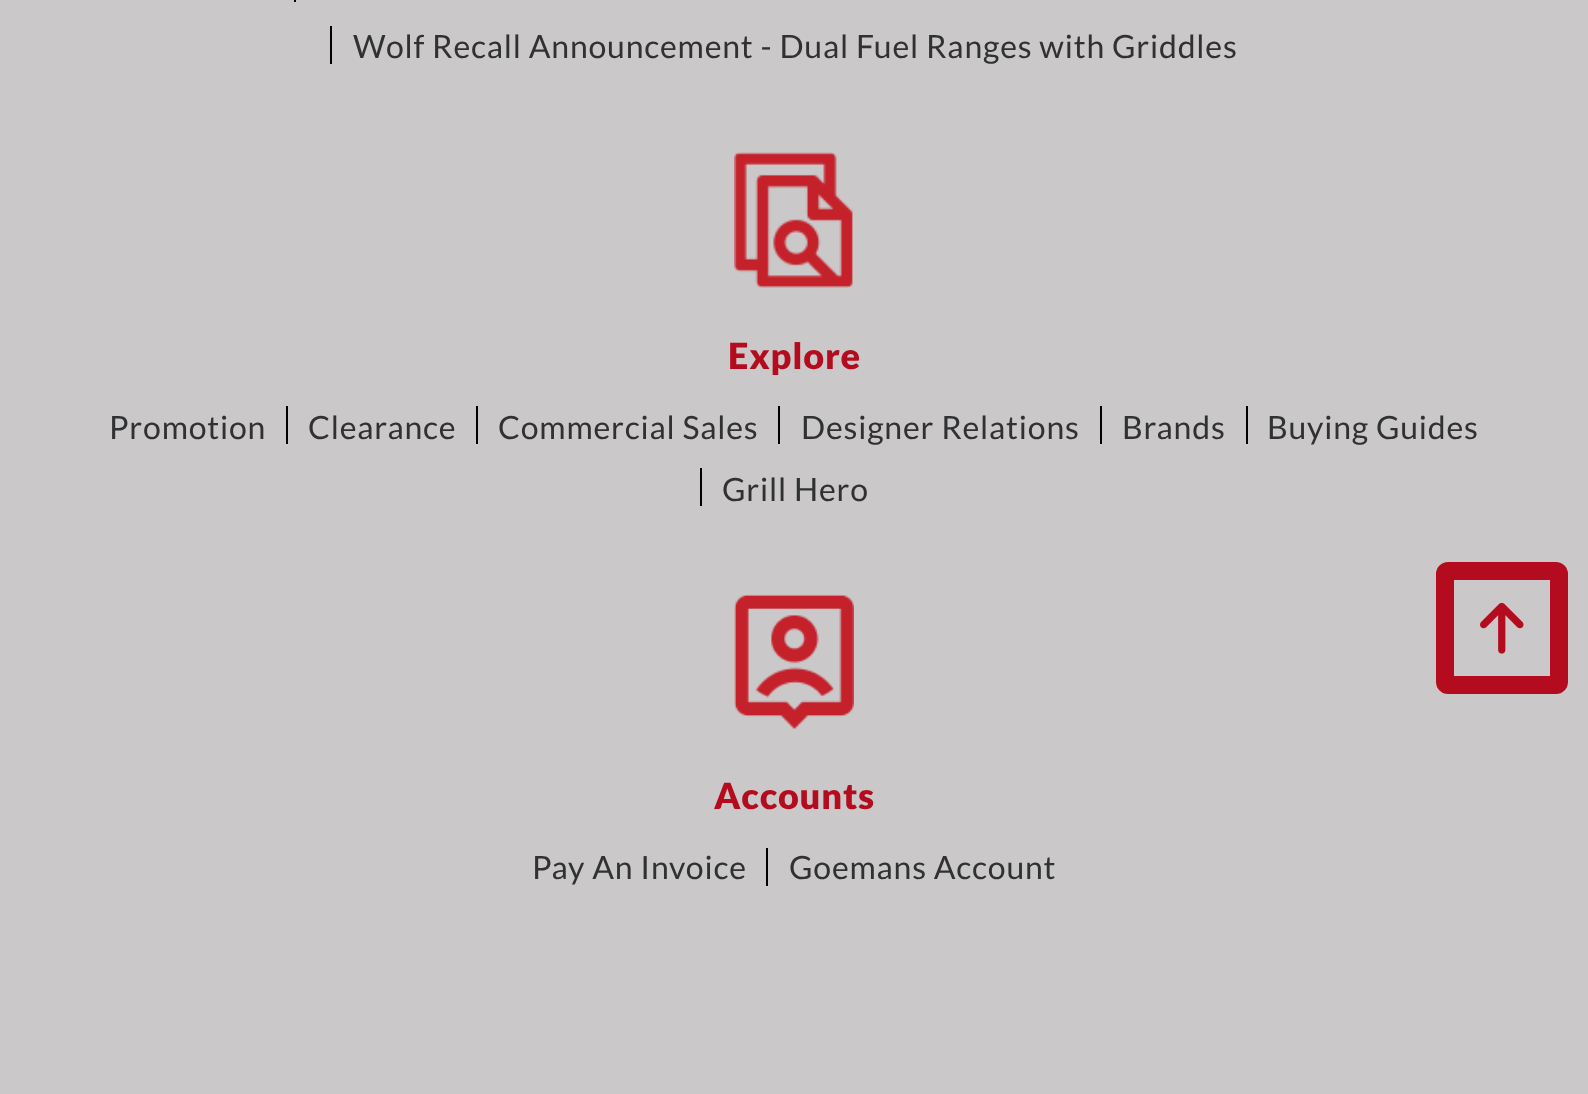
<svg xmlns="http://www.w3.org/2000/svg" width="1588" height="1094">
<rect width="100%" height="100%" fill="#cac8c8"/>
<rect x="294" width="2" height="2" fill="#000"/>
<text x="353" y="58" style="font-family:Lato;font-size:32px;letter-spacing:0.8px;fill:#303133">Wolf Recall Announcement - Dual Fuel Ranges with Griddles</text>
<rect x="330" y="26" width="2" height="38" fill="#000"/>
<image x="734" y="152" width="119" height="136" href="media/1.png"/>
<text x="728" y="369" style="font-family:Lato;font-size:36px;font-weight:900;letter-spacing:0.8px;fill:#b40c1e">Explore</text>
<text x="109" y="439" style="font-family:Lato;font-size:32px;letter-spacing:0.8px;fill:#303133">Promotion</text>
<text x="308" y="439" style="font-family:Lato;font-size:32px;letter-spacing:0.8px;fill:#303133">Clearance</text>
<rect x="286" y="406" width="2" height="38" fill="#000"/>
<text x="498" y="439" style="font-family:Lato;font-size:32px;letter-spacing:0.8px;fill:#303133">Commercial Sales</text>
<rect x="476" y="406" width="2" height="38" fill="#000"/>
<text x="801" y="439" style="font-family:Lato;font-size:32px;letter-spacing:0.8px;fill:#303133">Designer Relations</text>
<rect x="778" y="406" width="2" height="38" fill="#000"/>
<text x="1122" y="439" style="font-family:Lato;font-size:32px;letter-spacing:0.8px;fill:#303133">Brands</text>
<rect x="1100" y="406" width="2" height="38" fill="#000"/>
<text x="1267" y="439" style="font-family:Lato;font-size:32px;letter-spacing:0.8px;fill:#303133">Buying Guides</text>
<rect x="1246" y="406" width="2" height="38" fill="#000"/>
<text x="722" y="501" style="font-family:Lato;font-size:32px;letter-spacing:0.8px;fill:#303133">Grill Hero</text>
<rect x="700" y="468" width="2" height="38" fill="#000"/>
<image x="734" y="594" width="120" height="135" href="media/2.png"/>
<text x="714" y="809" style="font-family:Lato;font-size:36px;font-weight:900;letter-spacing:0.8px;fill:#b40c1e">Accounts</text>
<text x="532" y="879" style="font-family:Lato;font-size:32px;letter-spacing:0.8px;fill:#303133">Pay An Invoice</text>
<text x="789" y="879" style="font-family:Lato;font-size:32px;letter-spacing:0.8px;fill:#303133">Goemans Account</text>
<rect x="766" y="848" width="2" height="38" fill="#000"/>
<rect x="1445" y="571" width="114" height="114" rx="3" fill="none" stroke="#b40c1e" stroke-width="18"/>
<image x="1480" y="602" width="44" height="52" href="media/3.png"/>
</svg>
